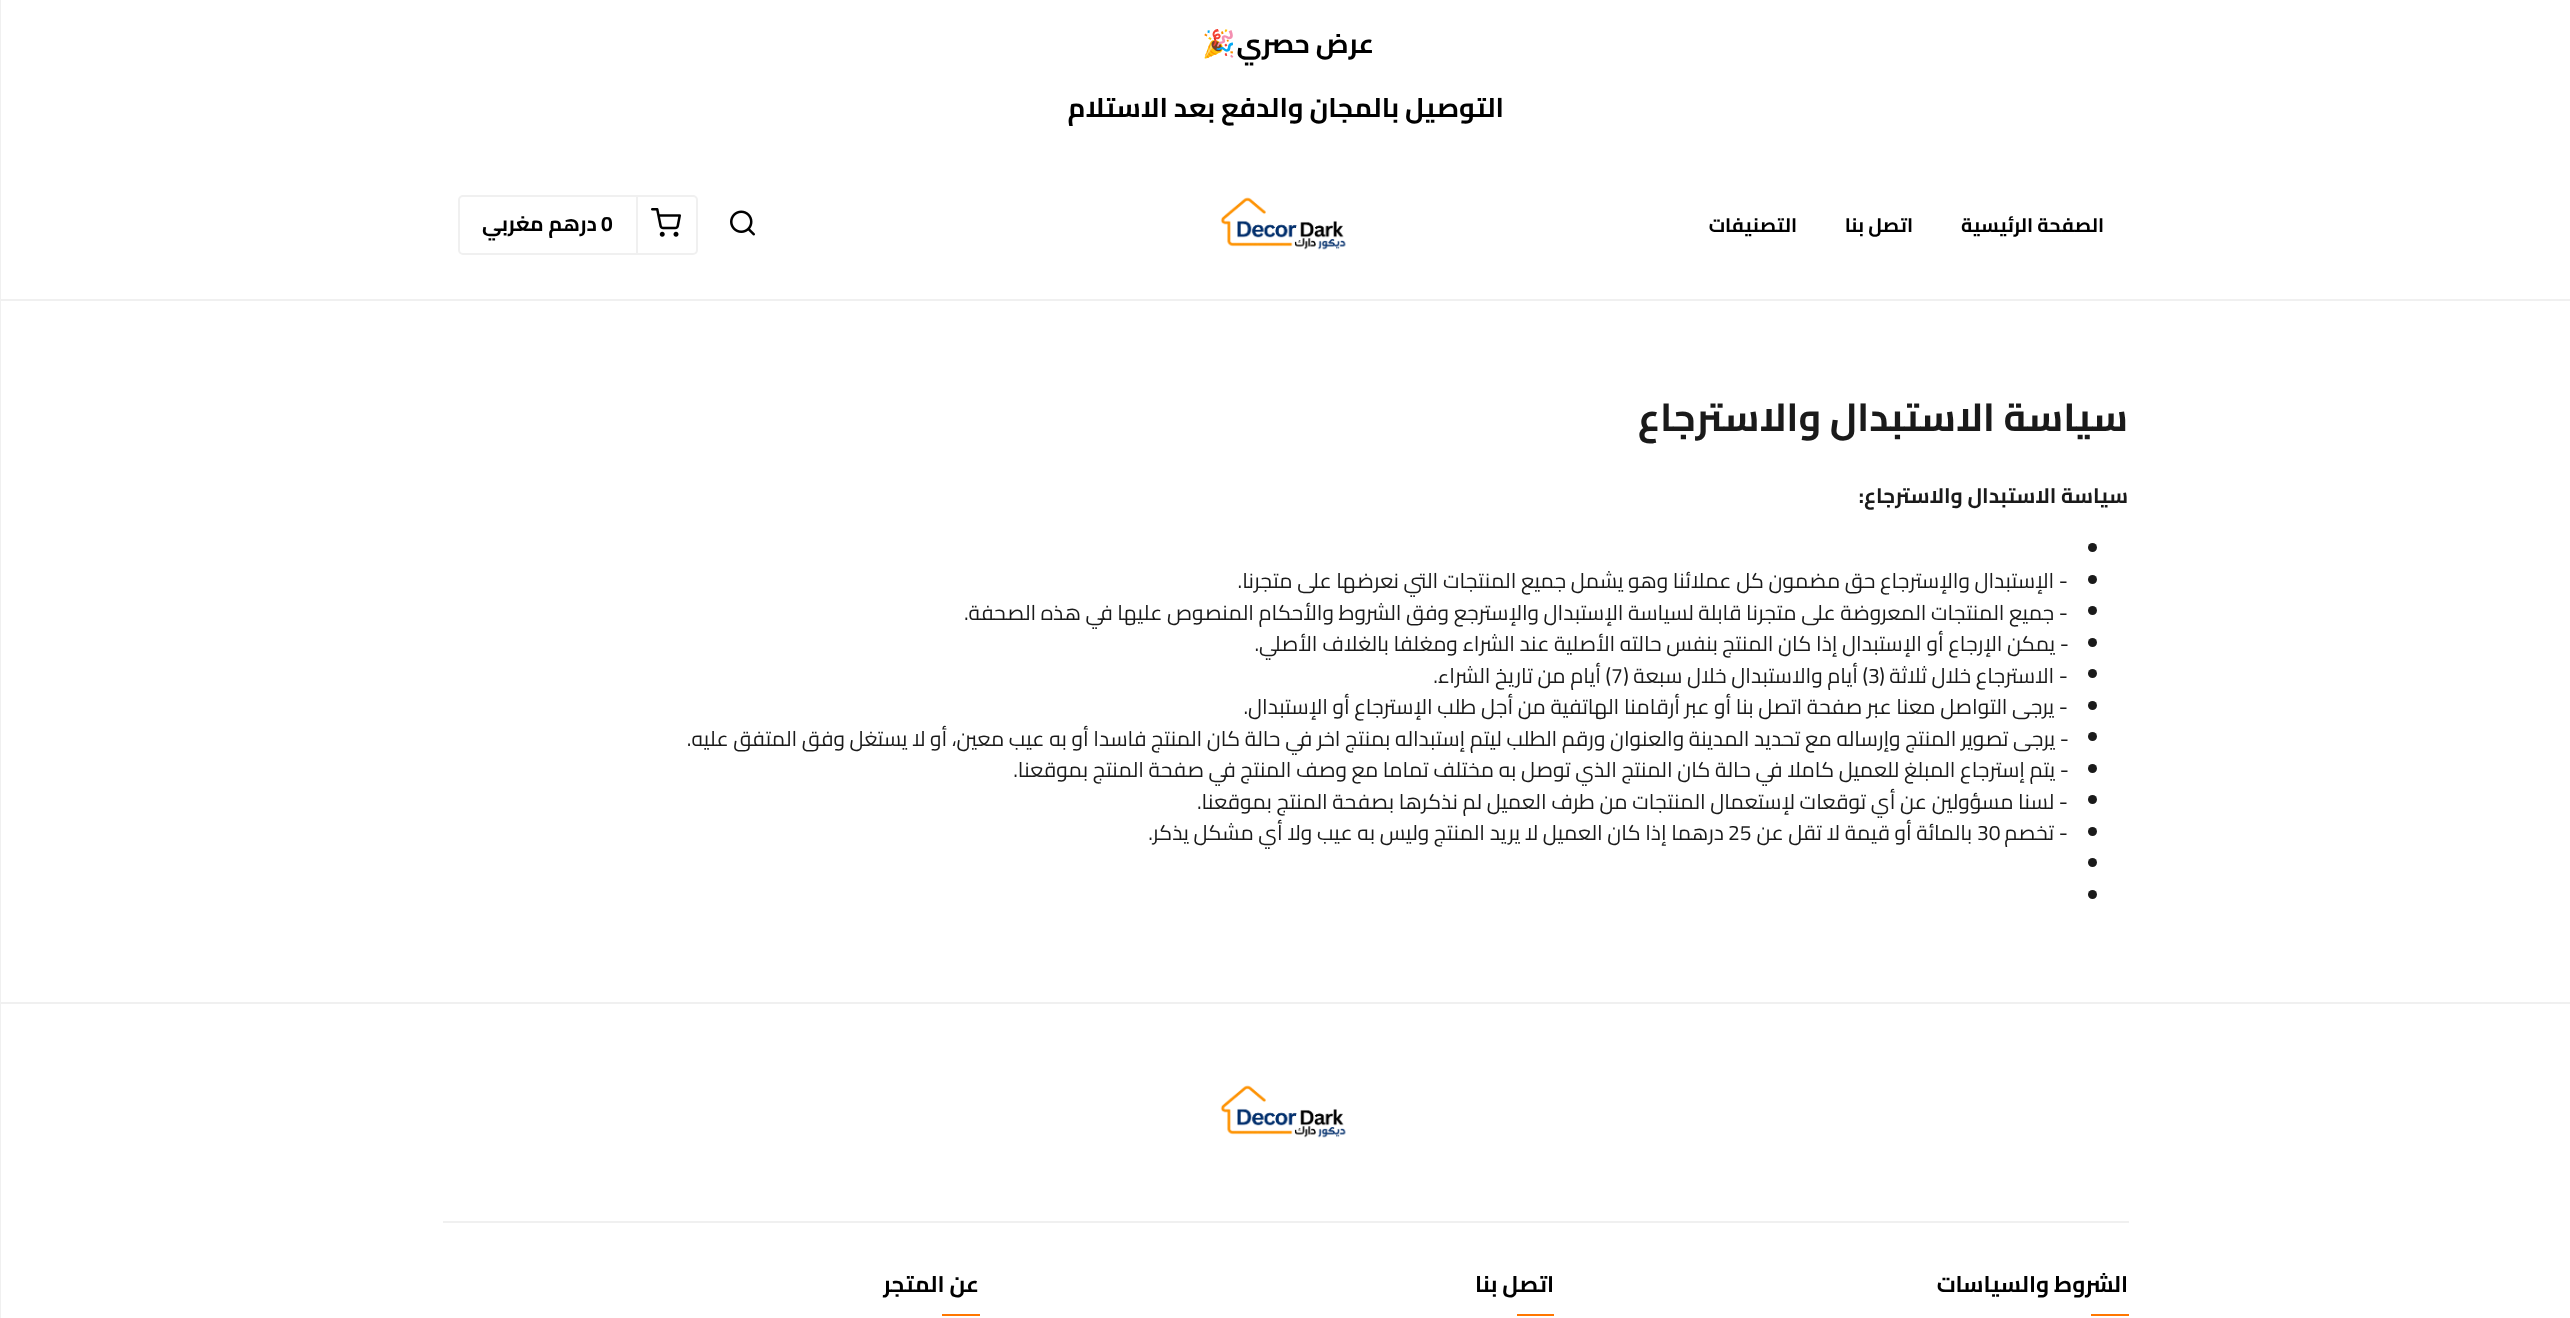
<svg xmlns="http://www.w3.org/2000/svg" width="2570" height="1318">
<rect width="100%" height="100%" fill="#fff"/>
<text x="1374" y="53" style="font-family:Cairo;font-size:27px;font-weight:bold;direction:rtl;fill:#000">عرض حصري</text>
<text x="1236" y="53" style="font-family:Noto Color Emoji;font-size:27px;font-weight:bold;direction:rtl;fill:#000">🎉</text>
<text x="1504" y="117" style="font-family:Cairo;font-size:27px;font-weight:bold;direction:rtl;fill:#000">التوصيل بالمجان والدفع بعد الاستلام</text>
<rect y="299" width="2570" height="2" fill="#f0f0f0"/>
<text x="2104" y="232" style="font-family:Cairo;font-size:19.5px;font-weight:bold;direction:rtl;fill:#000">الصفحة الرئيسية</text>
<text x="1913" y="232" style="font-family:Cairo;font-size:19.5px;font-weight:bold;direction:rtl;fill:#000">اتصل بنا</text>
<text x="1797" y="232" style="font-family:Cairo;font-size:19.5px;font-weight:bold;direction:rtl;fill:#000">التصنيفات</text>
<image x="1220" y="197" width="126" height="53" href="media/1.png"/>
<image x="730" y="210" width="25" height="26" href="media/2.png"/>
<rect x="459" y="196" width="238" height="58" rx="4" fill="none" stroke="#f0f0f0" stroke-width="2"/>
<rect x="636" y="197" width="2" height="57" fill="#f0f0f0"/>
<image x="651" y="208" width="30" height="29" href="media/3.png"/>
<text x="601" y="231" style="font-family:Cairo;font-size:21px;font-weight:bold;fill:#000">0</text>
<text x="597" y="231" style="font-family:Cairo;font-size:21px;font-weight:bold;direction:rtl;fill:#000">درهم مغربي</text>
<rect y="1002" width="2570" height="2" fill="#f0f0f0"/>
<rect width="1" height="1318" fill="#f0f0f0"/>
<text x="2128" y="431" style="font-family:Cairo;font-size:39px;font-weight:bold;direction:rtl;fill:#1a1a1a">سياسة الاستبدال والاسترجاع</text>
<text x="2128" y="503" style="font-family:Cairo;font-size:21px;font-weight:bold;direction:rtl;fill:#1a1a1a">سياسة الاستبدال والاسترجاع:</text>
<circle cx="2092.5" cy="547.5" r="4.5" fill="#1a1a1a"/>
<circle cx="2092.5" cy="579.5" r="4.5" fill="#1a1a1a"/>
<text x="2068" y="588" style="font-family:Cairo;font-size:21px;direction:rtl;fill:#1a1a1a">- الإستبدال والإسترجاع حق مضمون كل عملائنا وهو يشمل جميع المنتجات التي نعرضها على متجرنا.</text>
<circle cx="2092.5" cy="610.5" r="4.5" fill="#1a1a1a"/>
<text x="2068" y="620" style="font-family:Cairo;font-size:21px;direction:rtl;fill:#1a1a1a">- جميع المنتجات المعروضة على متجرنا قابلة لسياسة الإستبدال والإسترجع وفق الشروط والأحكام المنصوص عليها في هذه الصحفة.</text>
<circle cx="2092.5" cy="642.5" r="4.5" fill="#1a1a1a"/>
<text x="2069" y="651" style="font-family:Cairo;font-size:21px;direction:rtl;fill:#1a1a1a">- يمكن الإرجاع أو الإستبدال إذا كان المنتج بنفس حالته الأصلية عند الشراء ومغلفا بالغلاف الأصلي.</text>
<circle cx="2092.5" cy="673.5" r="4.5" fill="#1a1a1a"/>
<text x="2068" y="683" style="font-family:Cairo;font-size:21px;direction:rtl;fill:#1a1a1a">- الاسترجاع خلال ثلاثة (</text>
<text x="1868" y="683" style="font-family:Cairo;font-size:21px;fill:#1a1a1a">3</text>
<text x="1868" y="683" style="font-family:Cairo;font-size:21px;direction:rtl;fill:#1a1a1a">) أيام والاستبدال خلال سبعة (</text>
<text x="1611" y="683" style="font-family:Cairo;font-size:21px;fill:#1a1a1a">7</text>
<text x="1611" y="683" style="font-family:Cairo;font-size:21px;direction:rtl;fill:#1a1a1a">) أيام من تاريخ الشراء.</text>
<circle cx="2092.5" cy="705.5" r="4.5" fill="#1a1a1a"/>
<text x="2068" y="714" style="font-family:Cairo;font-size:21px;direction:rtl;fill:#1a1a1a">- يرجى التواصل معنا عبر صفحة اتصل بنا أو عبر أرقامنا الهاتفية من أجل طلب الإسترجاع أو الإستبدال.</text>
<circle cx="2092.5" cy="736.5" r="4.5" fill="#1a1a1a"/>
<text x="2069" y="746" style="font-family:Cairo;font-size:21px;direction:rtl;fill:#1a1a1a">- يرجى تصوير المنتج وإرساله مع تحديد المدينة والعنوان ورقم الطلب ليتم إستبداله بمنتج اخر في حالة كان المنتج فاسدا أو به عيب معين، أو لا يستغل وفق المتفق عليه.</text>
<circle cx="2092.5" cy="768.5" r="4.5" fill="#1a1a1a"/>
<text x="2069" y="777" style="font-family:Cairo;font-size:21px;direction:rtl;fill:#1a1a1a">- يتم إسترجاع المبلغ للعميل كاملا في حالة كان المنتج الذي توصل به مختلف تماما مع وصف المنتج في صفحة المنتج بموقعنا.</text>
<circle cx="2092.5" cy="799.5" r="4.5" fill="#1a1a1a"/>
<text x="2068" y="809" style="font-family:Cairo;font-size:21px;direction:rtl;fill:#1a1a1a">- لسنا مسؤولين عن أي توقعات لإستعمال المنتجات من طرف العميل لم نذكرها بصفحة المنتج بموقعنا.</text>
<circle cx="2092.5" cy="831.5" r="4.5" fill="#1a1a1a"/>
<text x="2068" y="840" style="font-family:Cairo;font-size:21px;direction:rtl;fill:#1a1a1a">- تخصم</text>
<text x="1977" y="840" style="font-family:Cairo;font-size:21px;fill:#1a1a1a">30</text>
<text x="1972" y="840" style="font-family:Cairo;font-size:21px;direction:rtl;fill:#1a1a1a">بالمائة أو قيمة لا تقل عن</text>
<text x="1728" y="840" style="font-family:Cairo;font-size:21px;fill:#1a1a1a">25</text>
<text x="1724" y="840" style="font-family:Cairo;font-size:21px;direction:rtl;fill:#1a1a1a">درهما إذا كان العميل لا يريد المنتج وليس به عيب ولا أي مشكل يذكر.</text>
<circle cx="2092.5" cy="862.5" r="4.5" fill="#1a1a1a"/>
<circle cx="2092.5" cy="894.5" r="4.5" fill="#1a1a1a"/>
<image x="1220" y="1085" width="126" height="53" href="media/1.png"/>
<rect x="443" y="1221" width="1686" height="2" fill="#f0f0f0"/>
<text x="2128" y="1292" style="font-family:Cairo;font-size:22.5px;font-weight:bold;direction:rtl;fill:#000">الشروط والسياسات</text>
<rect x="2091" y="1314" width="38" height="2" fill="#ff7600"/>
<text x="1554" y="1292" style="font-family:Cairo;font-size:22.5px;font-weight:bold;direction:rtl;fill:#000">اتصل بنا</text>
<rect x="1517" y="1314" width="37" height="2" fill="#ff7600"/>
<text x="979" y="1292" style="font-family:Cairo;font-size:22.5px;font-weight:bold;direction:rtl;fill:#000">عن المتجر</text>
<rect x="942" y="1314" width="38" height="2" fill="#ff7600"/>
</svg>
